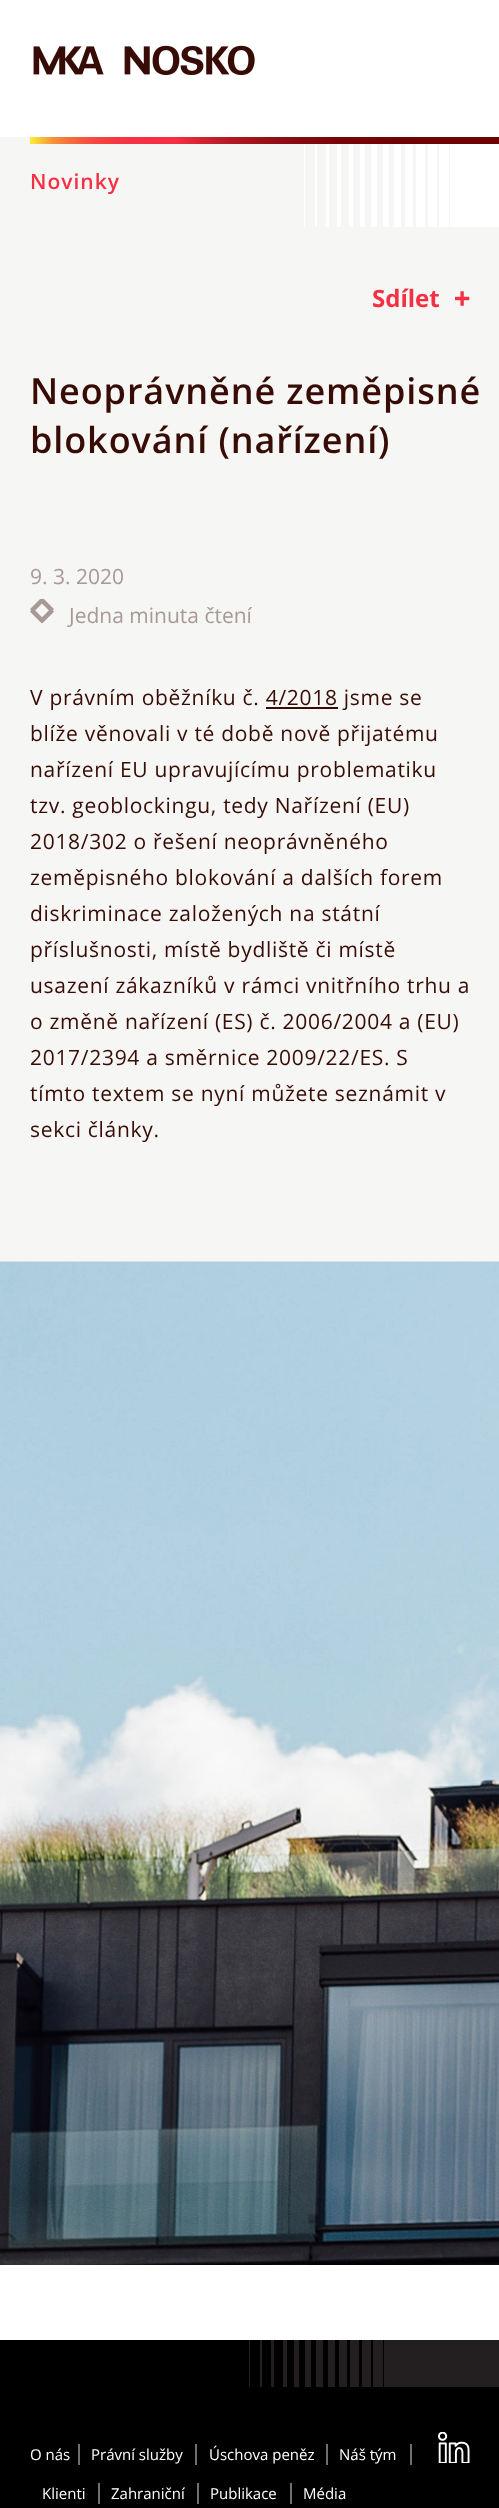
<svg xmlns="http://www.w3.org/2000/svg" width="499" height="2508">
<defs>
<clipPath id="clip1"><rect x="302" y="137" width="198" height="90"/></clipPath>
<linearGradient id="g1" gradientUnits="userSpaceOnUse" x1="30" y1="140" x2="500" y2="140"><stop offset="0" stop-color="#f9ed32"/><stop offset="0.01" stop-color="#f8de33"/><stop offset="0.03" stop-color="#f7b537"/><stop offset="0.05" stop-color="#f7903a"/><stop offset="0.08" stop-color="#f6723d"/><stop offset="0.11" stop-color="#f5593f"/><stop offset="0.14" stop-color="#f54641"/><stop offset="0.18" stop-color="#f53943"/><stop offset="0.22" stop-color="#f53143"/><stop offset="0.31" stop-color="#f52f44"/><stop offset="0.32" stop-color="#f12d42"/><stop offset="0.37" stop-color="#ce2231"/><stop offset="0.43" stop-color="#b11823"/><stop offset="0.5" stop-color="#981017"/><stop offset="0.57" stop-color="#860a0e"/><stop offset="0.66" stop-color="#780607"/><stop offset="0.78" stop-color="#710304"/><stop offset="1" stop-color="#6f0303"/></linearGradient>
<clipPath id="clip2"><rect x="248" y="2340" width="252" height="47"/></clipPath>
</defs>
<rect width="100%" height="100%" fill="#fff"/>
<image x="33" y="45" width="222" height="31" href="media/1.png"/>
<rect y="137" width="499" height="1125" fill="#f6f6f4"/>
<rect x="304" y="137" width="1" height="90" fill="#fff"/>
<rect x="315" y="137" width="2" height="90" fill="#fff"/>
<rect x="326" y="137" width="3" height="90" fill="#fff"/>
<rect x="337" y="137" width="4" height="90" fill="#fff"/>
<rect x="349" y="137" width="4" height="90" fill="#fff"/>
<rect x="360" y="137" width="5" height="90" fill="#fff"/>
<rect x="371" y="137" width="6" height="90" fill="#fff"/>
<rect x="383" y="137" width="6" height="90" fill="#fff"/>
<rect x="394" y="137" width="7" height="90" fill="#fff"/>
<rect x="405" y="137" width="8" height="90" fill="#fff"/>
<g clip-path="url(#clip1)">
<path d="M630 134h-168v95h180v-95z" fill="#fff"/>
</g>
<rect x="30" y="137" width="469" height="7" fill="url(#g1)"/>
<text x="30" y="189" style="font-family:Open Sans;font-size:21px;font-weight:600;letter-spacing:1px;fill:#f52f44">Novinky</text>
<rect x="416" y="144" width="9" height="83" fill="#fff"/>
<rect x="428" y="144" width="9" height="83" fill="#fff"/>
<rect x="439" y="144" width="10" height="83" fill="#fff"/>
<rect x="450" y="144" width="12" height="83" fill="#fff"/>
<text x="372" y="307" style="font-family:Open Sans;font-size:24px;font-weight:bold;fill:#f52f44">Sdílet</text>
<image x="455" y="291" width="15" height="15" href="media/2.png"/>
<text x="30" y="404" style="font-family:Open Sans;font-size:36px;font-weight:600;letter-spacing:0.9px;fill:#380c06">Neoprávněné zeměpisné</text>
<text x="30" y="453" style="font-family:Open Sans;font-size:36px;font-weight:600;letter-spacing:0.9px;fill:#380c06">blokování (nařízení)</text>
<text x="30" y="584" style="font-family:Open Sans;font-size:21px;fill:#a89997">9. 3. 2020</text>
<image x="30" y="599" width="24" height="24" href="media/3.png"/>
<text x="69" y="623" style="font-family:Open Sans;font-size:21px;fill:#a89997">Jedna minuta čtení</text>
<text x="30" y="705" style="font-family:Open Sans;font-size:21px;letter-spacing:0.7px;fill:#380c06">V právním oběžníku č. 4/2018 jsme se</text>
<rect x="266" y="707" width="72" height="2" fill="#380c06"/>
<text x="30" y="741" style="font-family:Open Sans;font-size:21px;letter-spacing:0.7px;fill:#380c06">blíže věnovali v té době nově přijatému</text>
<text x="30" y="777" style="font-family:Open Sans;font-size:21px;letter-spacing:0.7px;fill:#380c06">nařízení EU upravujícímu problematiku</text>
<text x="30" y="813" style="font-family:Open Sans;font-size:21px;letter-spacing:0.7px;fill:#380c06">tzv. geoblockingu, tedy Nařízení (EU)</text>
<text x="30" y="849" style="font-family:Open Sans;font-size:21px;letter-spacing:0.7px;fill:#380c06">2018/302 o řešení neoprávněného</text>
<text x="30" y="885" style="font-family:Open Sans;font-size:21px;letter-spacing:0.7px;fill:#380c06">zeměpisného blokování a dalších forem</text>
<text x="30" y="921" style="font-family:Open Sans;font-size:21px;letter-spacing:0.7px;fill:#380c06">diskriminace založených na státní</text>
<text x="30" y="957" style="font-family:Open Sans;font-size:21px;letter-spacing:0.7px;fill:#380c06">příslušnosti, místě bydliště či místě</text>
<text x="30" y="993" style="font-family:Open Sans;font-size:21px;letter-spacing:0.7px;fill:#380c06">usazení zákazníků v rámci vnitřního trhu a</text>
<text x="30" y="1029" style="font-family:Open Sans;font-size:21px;letter-spacing:0.7px;fill:#380c06">o změně nařízení (ES) č. 2006/2004 a (EU)</text>
<text x="30" y="1065" style="font-family:Open Sans;font-size:21px;letter-spacing:0.7px;fill:#380c06">2017/2394 a směrnice 2009/22/ES. S</text>
<text x="30" y="1101" style="font-family:Open Sans;font-size:21px;letter-spacing:0.7px;fill:#380c06">tímto textem se nyní můžete seznámit v</text>
<text x="30" y="1137" style="font-family:Open Sans;font-size:21px;letter-spacing:0.7px;fill:#380c06">sekci články.</text>
<image x="0" y="1261" width="499" height="1004" href="media/4.png"/>
<rect y="2340" width="499" height="168" fill="#000"/>
<rect x="249" y="2340" width="1" height="47" fill="#231f20"/>
<rect x="260" y="2340" width="2" height="47" fill="#231f20"/>
<rect x="271" y="2340" width="3" height="47" fill="#231f20"/>
<rect x="283" y="2340" width="4" height="47" fill="#231f20"/>
<rect x="294" y="2340" width="5" height="47" fill="#231f20"/>
<rect x="305" y="2340" width="6" height="47" fill="#231f20"/>
<rect x="316" y="2340" width="7" height="47" fill="#231f20"/>
<rect x="328" y="2340" width="7" height="47" fill="#231f20"/>
<rect x="339" y="2340" width="8" height="47" fill="#231f20"/>
<rect x="350" y="2340" width="9" height="47" fill="#231f20"/>
<rect x="362" y="2340" width="9" height="47" fill="#231f20"/>
<rect x="373" y="2340" width="10" height="47" fill="#231f20"/>
<rect x="384" y="2340" width="23" height="47" fill="#231f20"/>
<g clip-path="url(#clip2)">
<path d="M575 2315h-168v95h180v-95z" fill="#231f20"/>
</g>
<rect x="78" y="2444" width="2" height="21" fill="#707070"/>
<text x="30" y="2460" style="font-family:Open Sans;font-size:15px;fill:#fff">O nás</text>
<rect x="195" y="2444" width="2" height="21" fill="#707070"/>
<text x="91" y="2460" style="font-family:Open Sans;font-size:15px;fill:#fff">Právní služby</text>
<rect x="326" y="2444" width="2" height="21" fill="#707070"/>
<text x="209" y="2460" style="font-family:Open Sans;font-size:15px;fill:#fff">Úschova peněz</text>
<rect x="410" y="2444" width="2" height="21" fill="#707070"/>
<text x="339" y="2460" style="font-family:Open Sans;font-size:15px;fill:#fff">Náš tým</text>
<rect x="98" y="2483" width="2" height="21" fill="#707070"/>
<text x="42" y="2499" style="font-family:Open Sans;font-size:15px;fill:#fff">Klienti</text>
<rect x="197" y="2483" width="2" height="21" fill="#707070"/>
<text x="111" y="2499" style="font-family:Open Sans;font-size:15px;fill:#fff">Zahraniční</text>
<rect x="290" y="2483" width="2" height="21" fill="#707070"/>
<text x="210" y="2499" style="font-family:Open Sans;font-size:15px;fill:#fff">Publikace</text>
<text x="303" y="2499" style="font-family:Open Sans;font-size:15px;fill:#fff">Média</text>
<image x="438" y="2432" width="32" height="31" href="media/5.png"/>
</svg>
